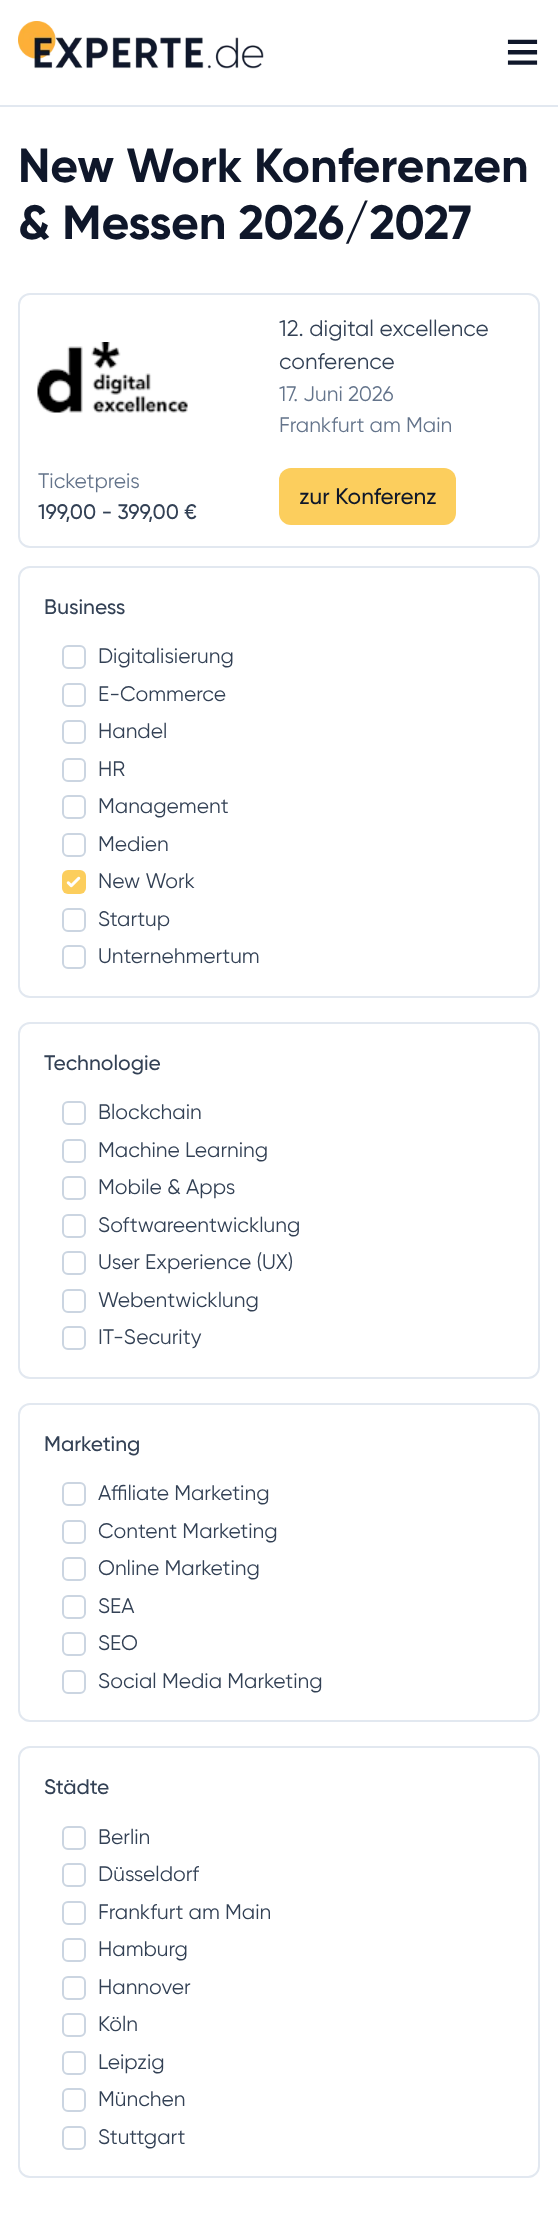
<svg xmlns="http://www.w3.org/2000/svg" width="558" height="2234">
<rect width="100%" height="100%" fill="#fff"/>
<rect y="105" width="558" height="2" fill="#e2e8f0"/>
<image x="18" y="21" width="246" height="48" href="media/1.png"/>
<text x="505" y="72" style="font-family:Liberation Sans;font-size:60px;fill:#0f172a">≡</text>
<text x="18" y="182" style="font-family:Gilroy;font-size:48px;font-weight:bold;fill:#0f172a">New Work Konferenzen</text>
<text x="18" y="239" style="font-family:Gilroy;font-size:48px;font-weight:bold;fill:#0f172a">&amp; Messen 2026/2027</text>
<rect x="19" y="294" width="520" height="253" rx="11" fill="none" stroke="#e2e8f0" stroke-width="2"/>
<image x="37" y="342" width="151" height="71" href="media/2.png"/>
<text x="279" y="336" style="font-family:Gilroy;font-size:22.5px;fill:#334155">12. digital excellence</text>
<text x="279" y="369" style="font-family:Gilroy;font-size:22.5px;fill:#334155">conference</text>
<text x="279" y="401" style="font-family:Gilroy;font-size:21px;fill:#64748b">17. Juni 2026</text>
<text x="279" y="432" style="font-family:Gilroy;font-size:21px;fill:#64748b">Frankfurt am Main</text>
<text x="38" y="488" style="font-family:Gilroy;font-size:21px;fill:#64748b">Ticketpreis</text>
<text x="38" y="519" style="font-family:Gilroy;font-size:21px;font-weight:500;fill:#334155">199,00 - 399,00 €</text>
<rect x="279" y="468" width="177" height="57" rx="12" fill="#fcce5d"/>
<text x="299" y="504" style="font-family:Gilroy;font-size:22.5px;font-weight:500;fill:#0f172a">zur Konferenz</text>
<rect x="19" y="567" width="520" height="430" rx="11" fill="none" stroke="#e2e8f0" stroke-width="2"/>
<text x="44" y="614" style="font-family:Gilroy;font-size:21px;font-weight:500;fill:#334155">Business</text>
<rect x="63" y="646" width="22" height="22" rx="5" fill="none" stroke="#cbd5e1" stroke-width="2"/>
<text x="98" y="663" style="font-family:Gilroy;font-size:21px;fill:#334155">Digitalisierung</text>
<rect x="63" y="684" width="22" height="22" rx="5" fill="none" stroke="#cbd5e1" stroke-width="2"/>
<text x="98" y="701" style="font-family:Gilroy;font-size:21px;fill:#334155">E-Commerce</text>
<rect x="63" y="721" width="22" height="22" rx="5" fill="none" stroke="#cbd5e1" stroke-width="2"/>
<text x="98" y="738" style="font-family:Gilroy;font-size:21px;fill:#334155">Handel</text>
<rect x="63" y="759" width="22" height="22" rx="5" fill="none" stroke="#cbd5e1" stroke-width="2"/>
<text x="98" y="776" style="font-family:Gilroy;font-size:21px;fill:#334155">HR</text>
<rect x="63" y="796" width="22" height="22" rx="5" fill="none" stroke="#cbd5e1" stroke-width="2"/>
<text x="98" y="813" style="font-family:Gilroy;font-size:21px;fill:#334155">Management</text>
<rect x="63" y="834" width="22" height="22" rx="5" fill="none" stroke="#cbd5e1" stroke-width="2"/>
<text x="98" y="851" style="font-family:Gilroy;font-size:21px;fill:#334155">Medien</text>
<rect x="62" y="870" width="24" height="24" rx="6" fill="#fcce5d"/>
<image x="66" y="876" width="15" height="12" href="media/3.png"/>
<text x="98" y="888" style="font-family:Gilroy;font-size:21px;fill:#334155">New Work</text>
<rect x="63" y="909" width="22" height="22" rx="5" fill="none" stroke="#cbd5e1" stroke-width="2"/>
<text x="98" y="926" style="font-family:Gilroy;font-size:21px;fill:#334155">Startup</text>
<rect x="63" y="946" width="22" height="22" rx="5" fill="none" stroke="#cbd5e1" stroke-width="2"/>
<text x="98" y="963" style="font-family:Gilroy;font-size:21px;fill:#334155">Unternehmertum</text>
<rect x="19" y="1023" width="520" height="355" rx="11" fill="none" stroke="#e2e8f0" stroke-width="2"/>
<text x="44" y="1070" style="font-family:Gilroy;font-size:21px;font-weight:500;fill:#334155">Technologie</text>
<rect x="63" y="1102" width="22" height="22" rx="5" fill="none" stroke="#cbd5e1" stroke-width="2"/>
<text x="98" y="1119" style="font-family:Gilroy;font-size:21px;fill:#334155">Blockchain</text>
<rect x="63" y="1140" width="22" height="22" rx="5" fill="none" stroke="#cbd5e1" stroke-width="2"/>
<text x="98" y="1157" style="font-family:Gilroy;font-size:21px;fill:#334155">Machine Learning</text>
<rect x="63" y="1177" width="22" height="22" rx="5" fill="none" stroke="#cbd5e1" stroke-width="2"/>
<text x="98" y="1194" style="font-family:Gilroy;font-size:21px;fill:#334155">Mobile &amp; Apps</text>
<rect x="63" y="1215" width="22" height="22" rx="5" fill="none" stroke="#cbd5e1" stroke-width="2"/>
<text x="98" y="1232" style="font-family:Gilroy;font-size:21px;fill:#334155">Softwareentwicklung</text>
<rect x="63" y="1252" width="22" height="22" rx="5" fill="none" stroke="#cbd5e1" stroke-width="2"/>
<text x="98" y="1269" style="font-family:Gilroy;font-size:21px;fill:#334155">User Experience (UX)</text>
<rect x="63" y="1290" width="22" height="22" rx="5" fill="none" stroke="#cbd5e1" stroke-width="2"/>
<text x="98" y="1307" style="font-family:Gilroy;font-size:21px;fill:#334155">Webentwicklung</text>
<rect x="63" y="1327" width="22" height="22" rx="5" fill="none" stroke="#cbd5e1" stroke-width="2"/>
<text x="98" y="1344" style="font-family:Gilroy;font-size:21px;fill:#334155">IT-Security</text>
<rect x="19" y="1404" width="520" height="317" rx="11" fill="none" stroke="#e2e8f0" stroke-width="2"/>
<text x="44" y="1451" style="font-family:Gilroy;font-size:21px;font-weight:500;fill:#334155">Marketing</text>
<rect x="63" y="1483" width="22" height="22" rx="5" fill="none" stroke="#cbd5e1" stroke-width="2"/>
<text x="98" y="1500" style="font-family:Gilroy;font-size:21px;fill:#334155">Affiliate Marketing</text>
<rect x="63" y="1521" width="22" height="22" rx="5" fill="none" stroke="#cbd5e1" stroke-width="2"/>
<text x="98" y="1538" style="font-family:Gilroy;font-size:21px;fill:#334155">Content Marketing</text>
<rect x="63" y="1558" width="22" height="22" rx="5" fill="none" stroke="#cbd5e1" stroke-width="2"/>
<text x="98" y="1575" style="font-family:Gilroy;font-size:21px;fill:#334155">Online Marketing</text>
<rect x="63" y="1596" width="22" height="22" rx="5" fill="none" stroke="#cbd5e1" stroke-width="2"/>
<text x="98" y="1613" style="font-family:Gilroy;font-size:21px;fill:#334155">SEA</text>
<rect x="63" y="1633" width="22" height="22" rx="5" fill="none" stroke="#cbd5e1" stroke-width="2"/>
<text x="98" y="1650" style="font-family:Gilroy;font-size:21px;fill:#334155">SEO</text>
<rect x="63" y="1671" width="22" height="22" rx="5" fill="none" stroke="#cbd5e1" stroke-width="2"/>
<text x="98" y="1688" style="font-family:Gilroy;font-size:21px;fill:#334155">Social Media Marketing</text>
<rect x="19" y="1747" width="520" height="430" rx="11" fill="none" stroke="#e2e8f0" stroke-width="2"/>
<text x="44" y="1794" style="font-family:Gilroy;font-size:21px;font-weight:500;fill:#334155">Städte</text>
<rect x="63" y="1827" width="22" height="22" rx="5" fill="none" stroke="#cbd5e1" stroke-width="2"/>
<text x="98" y="1844" style="font-family:Gilroy;font-size:21px;fill:#334155">Berlin</text>
<rect x="63" y="1864" width="22" height="22" rx="5" fill="none" stroke="#cbd5e1" stroke-width="2"/>
<text x="98" y="1881" style="font-family:Gilroy;font-size:21px;fill:#334155">Düsseldorf</text>
<rect x="63" y="1902" width="22" height="22" rx="5" fill="none" stroke="#cbd5e1" stroke-width="2"/>
<text x="98" y="1919" style="font-family:Gilroy;font-size:21px;fill:#334155">Frankfurt am Main</text>
<rect x="63" y="1939" width="22" height="22" rx="5" fill="none" stroke="#cbd5e1" stroke-width="2"/>
<text x="98" y="1956" style="font-family:Gilroy;font-size:21px;fill:#334155">Hamburg</text>
<rect x="63" y="1977" width="22" height="22" rx="5" fill="none" stroke="#cbd5e1" stroke-width="2"/>
<text x="98" y="1994" style="font-family:Gilroy;font-size:21px;fill:#334155">Hannover</text>
<rect x="63" y="2014" width="22" height="22" rx="5" fill="none" stroke="#cbd5e1" stroke-width="2"/>
<text x="98" y="2031" style="font-family:Gilroy;font-size:21px;fill:#334155">Köln</text>
<rect x="63" y="2052" width="22" height="22" rx="5" fill="none" stroke="#cbd5e1" stroke-width="2"/>
<text x="98" y="2069" style="font-family:Gilroy;font-size:21px;fill:#334155">Leipzig</text>
<rect x="63" y="2089" width="22" height="22" rx="5" fill="none" stroke="#cbd5e1" stroke-width="2"/>
<text x="98" y="2106" style="font-family:Gilroy;font-size:21px;fill:#334155">München</text>
<rect x="63" y="2127" width="22" height="22" rx="5" fill="none" stroke="#cbd5e1" stroke-width="2"/>
<text x="98" y="2144" style="font-family:Gilroy;font-size:21px;fill:#334155">Stuttgart</text>
</svg>
